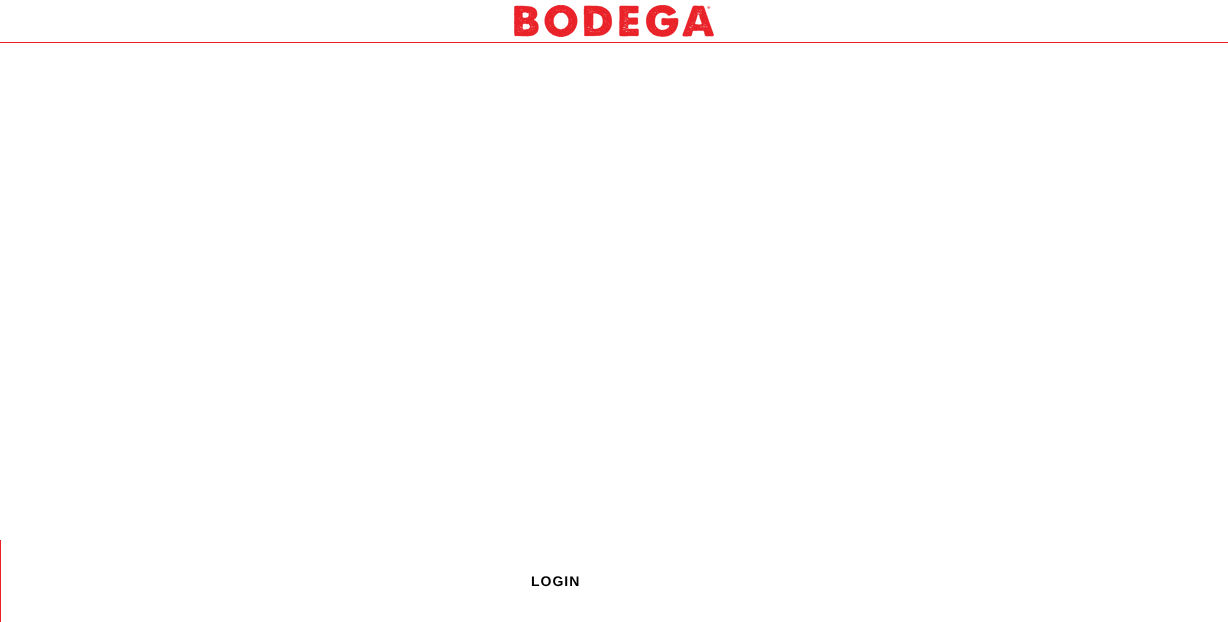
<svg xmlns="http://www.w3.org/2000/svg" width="1228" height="622">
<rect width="100%" height="100%" fill="#fff"/>
<rect y="42" width="1228" height="1" fill="#ed1f26"/>
<image x="514" y="5" width="200" height="32" href="media/1.png"/>
<rect y="540" width="1" height="82" fill="#ed1f26"/>
<text x="531" y="586" style="font-family:Liberation Sans;font-size:14px;font-weight:bold;letter-spacing:1px;fill:#000">LOGIN</text>
</svg>
